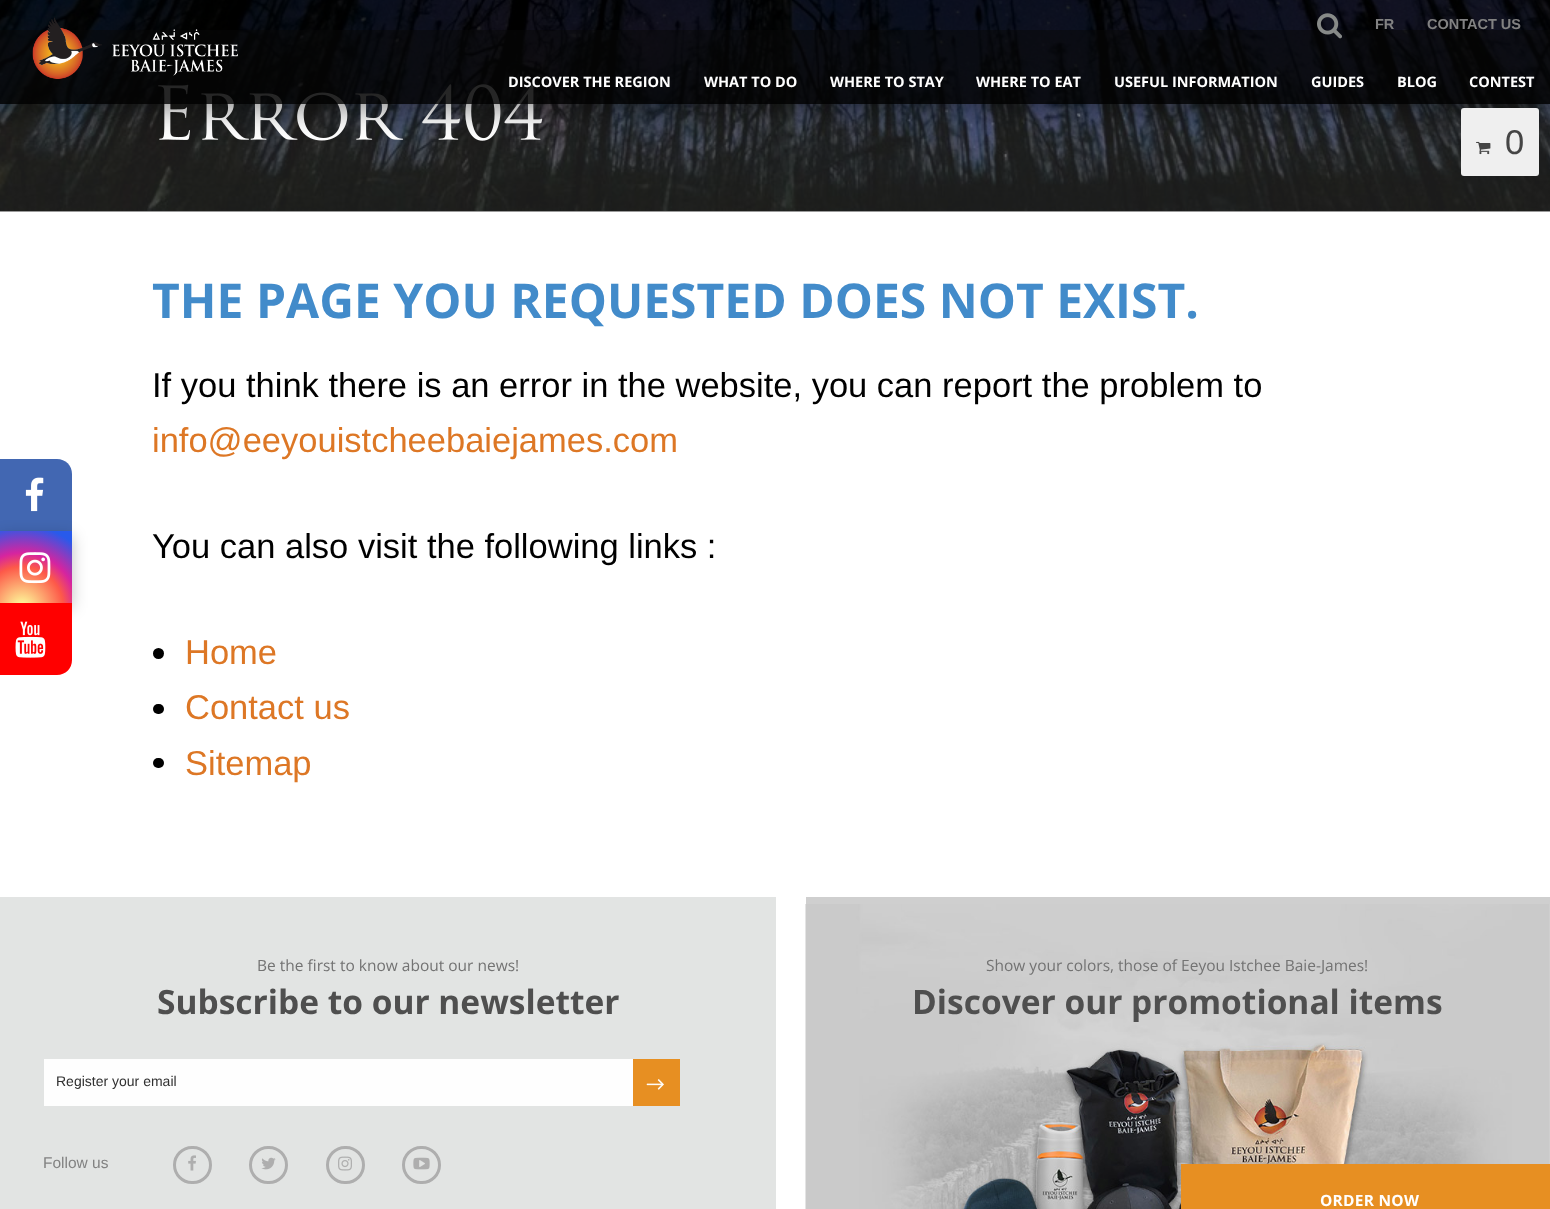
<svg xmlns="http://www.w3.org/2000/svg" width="1550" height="1209">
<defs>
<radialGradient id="g1" gradientUnits="userSpaceOnUse" cx="22" cy="608" r="92"><stop offset="0" stop-color="#fdf497"/><stop offset="0.05" stop-color="#fdf497"/><stop offset="0.45" stop-color="#fd5949"/><stop offset="0.6" stop-color="#d6249f"/><stop offset="0.9" stop-color="#285aeb"/></radialGradient>
<clipPath id="clip1"><path d="M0 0h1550v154h-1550zm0 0h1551v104h-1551z" clip-rule="evenodd"/></clipPath>
</defs>
<rect width="100%" height="100%" fill="#fff"/>
<path d="M0 459h57c8.5 0 15 6.5 15 15v57h-72z" fill="#4267b2"/>
<image x="25" y="477" width="19" height="35" href="media/1.png"/>
<rect y="536" width="72" height="72" fill="#00000040" filter="blur(7.5px)"/>
<rect y="531" width="72" height="72" fill="url(#g1)"/>
<image x="19" y="552" width="32" height="32" href="media/2.png"/>
<path d="M0 603h72v57c0 8.5-6.5 15-15 15h-57z" fill="#f00"/>
<image x="15" y="621" width="31" height="37" href="media/3.png"/>
<image x="0" y="0" width="1550" height="211" href="media/7.png"/>
<rect y="30" width="1550" height="182" fill="#36363680"/>
<image x="158" y="84" width="385" height="57" href="media/8.png"/>
<g clip-path="url(#clip1)">
<rect y="5" width="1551" height="103" fill="#00000080" filter="blur(15px)"/>
</g>
<rect width="1550" height="104" fill="#000000d9"/>
<image x="32" y="17" width="206" height="62" href="media/4.png"/>
<image x="1317" y="13" width="25" height="26" href="media/5.png"/>
<text x="1375" y="29" style="font-family:Liberation Sans;font-size:14.5px;font-weight:bold;fill:#828282">FR</text>
<text x="1427" y="29" style="font-family:Liberation Sans;font-size:14.5px;font-weight:bold;fill:#828282">CONTACT US</text>
<text x="508" y="87" style="font-family:Open Sans;font-size:14.5px;font-weight:bold;fill:#fff">DISCOVER THE REGION</text>
<text x="704" y="87" style="font-family:Open Sans;font-size:14.5px;font-weight:bold;fill:#fff">WHAT TO DO</text>
<text x="830" y="87" style="font-family:Open Sans;font-size:14.5px;font-weight:bold;fill:#fff">WHERE TO STAY</text>
<text x="976" y="87" style="font-family:Open Sans;font-size:14.5px;font-weight:bold;fill:#fff">WHERE TO EAT</text>
<text x="1114" y="87" style="font-family:Open Sans;font-size:14.5px;font-weight:bold;fill:#fff">USEFUL INFORMATION</text>
<text x="1311" y="87" style="font-family:Open Sans;font-size:14.5px;font-weight:bold;fill:#fff">GUIDES</text>
<text x="1397" y="87" style="font-family:Open Sans;font-size:14.5px;font-weight:bold;fill:#fff">BLOG</text>
<text x="1469" y="87" style="font-family:Open Sans;font-size:14.5px;font-weight:bold;fill:#fff">CONTEST</text>
<rect x="1461" y="108" width="78" height="68" rx="3" fill="#efefef"/>
<image x="1476" y="141" width="15" height="14" href="media/6.png"/>
<text x="1505" y="154" style="font-family:Liberation Sans;font-size:34.5px;fill:#454545">0</text>
<text x="152" y="318" style="font-family:Open Sans;font-size:48px;font-weight:bold;fill:#428bca">THE PAGE YOU REQUESTED DOES NOT EXIST.</text>
<text x="152" y="397" style="font-family:Liberation Sans;font-size:34.5px;fill:#000">If you think there is an error in the website, you can report the problem to</text>
<text x="152" y="452" style="font-family:Liberation Sans;font-size:34.5px;fill:#dd7725">info@eeyouistcheebaiejames.com</text>
<text x="152" y="558" style="font-family:Liberation Sans;font-size:34.5px;fill:#000">You can also visit the following links :</text>
<circle cx="158.5" cy="653.5" r="5.5" fill="#000"/>
<text x="185" y="664" style="font-family:Liberation Sans;font-size:34.5px;fill:#dd7725">Home</text>
<rect x="153" y="704" width="11" height="10" rx="5" fill="#000"/>
<text x="185" y="719" style="font-family:Liberation Sans;font-size:34.5px;fill:#dd7725">Contact us</text>
<rect x="153" y="758" width="11" height="10" rx="5" fill="#000"/>
<text x="185" y="775" style="font-family:Liberation Sans;font-size:34.5px;fill:#dd7725">Sitemap</text>
<rect y="897" width="776" height="312" fill="#e2e4e3"/>
<text x="257" y="971" style="font-family:Open Sans;font-size:15.5px;fill:#737373">Be the first to know about our news!</text>
<text x="157" y="1014" style="font-family:Open Sans;font-size:33.5px;font-weight:bold;fill:#4f4f4f">Subscribe to our newsletter</text>
<rect x="44" y="1059" width="589" height="47" fill="#fefefe"/>
<text x="56" y="1086" style="font-family:Liberation Sans;font-size:14px;fill:#303030">Register your email</text>
<rect x="633" y="1059" width="47" height="47" fill="#e78f22"/>
<image x="646" y="1079" width="18" height="11" href="media/9.png"/>
<text x="43" y="1168" style="font-family:Liberation Sans;font-size:15.5px;fill:#828282">Follow us</text>
<rect x="174.5" y="1147.5" width="36" height="35" rx="17.5" fill="none" stroke="#aeaeae" stroke-width="3"/>
<image x="188" y="1155" width="8" height="16" href="media/10.png"/>
<rect x="250.5" y="1147.5" width="36" height="35" rx="17.5" fill="none" stroke="#aeaeae" stroke-width="3"/>
<image x="261" y="1157" width="15" height="13" href="media/11.png"/>
<rect x="327.5" y="1147.5" width="36" height="35" rx="17.5" fill="none" stroke="#aeaeae" stroke-width="3"/>
<image x="338" y="1156" width="14" height="15" href="media/12.png"/>
<rect x="403.5" y="1147.5" width="36" height="35" rx="17.5" fill="none" stroke="#aeaeae" stroke-width="3"/>
<image x="413" y="1157" width="17" height="13" href="media/13.png"/>
<rect x="806" y="897" width="744" height="267" fill="#cfcfcf"/>
<image x="805" y="904" width="744" height="305" href="media/14.png"/>
<text x="986" y="971" style="font-family:Open Sans;font-size:15.5px;fill:#737373">Show your colors, those of Eeyou Istchee Baie-James!</text>
<text x="912" y="1014" style="font-family:Open Sans;font-size:33.5px;font-weight:bold;fill:#4f4f4f">Discover our promotional items</text>
<rect x="1181" y="1164" width="369" height="45" fill="#e78f22"/>
<text x="1320" y="1206" style="font-family:Open Sans;font-size:15.5px;font-weight:bold;letter-spacing:0.25px;fill:#fff">ORDER NOW</text>
</svg>
